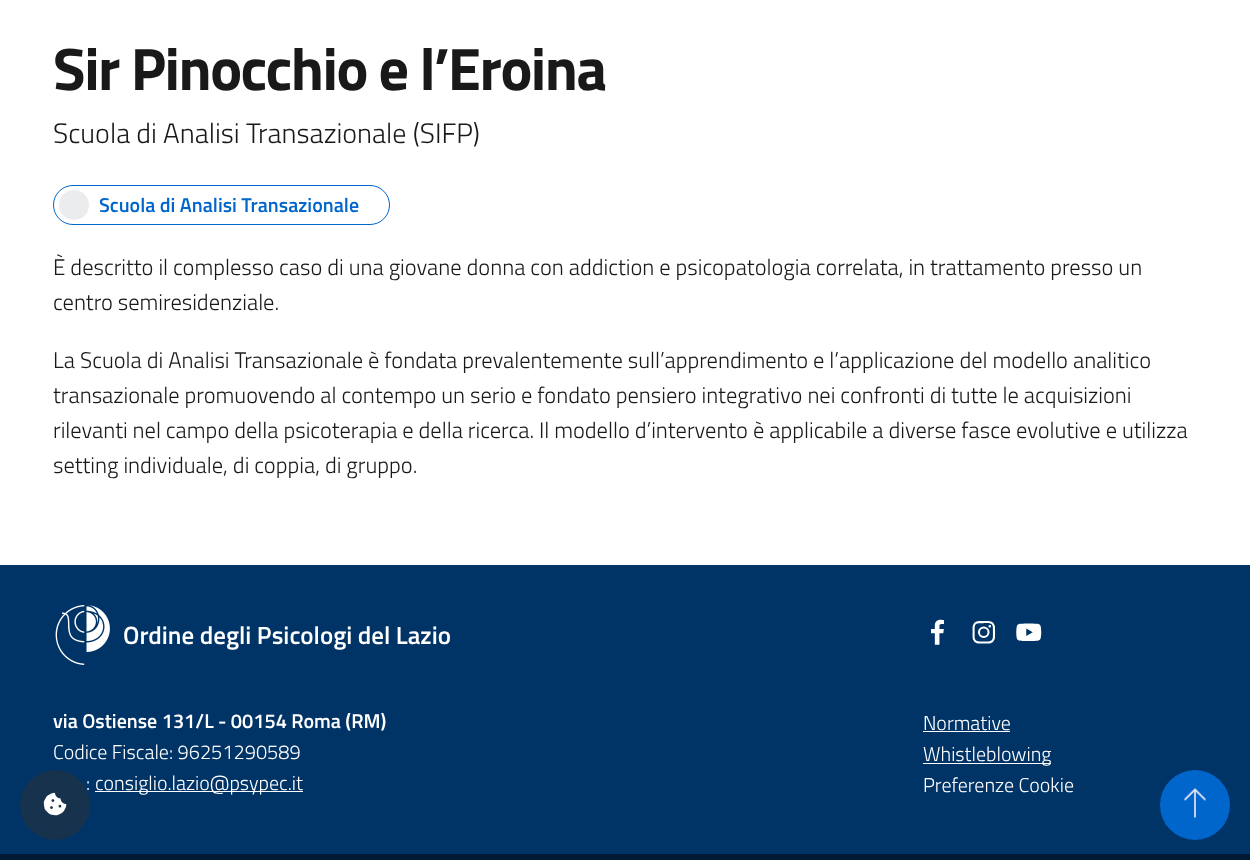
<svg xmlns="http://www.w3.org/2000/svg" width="1250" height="860">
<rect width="100%" height="100%" fill="#fff"/>
<text x="53" y="90" style="font-family:Titillium Web;font-size:60px;font-weight:bold;letter-spacing:-1.5px;fill:#19191a">Sir Pinocchio e l’Eroina</text>
<text x="53" y="143" style="font-family:Titillium Web;font-size:28.1px;font-weight:300;fill:#19191a">Scuola di Analisi Transazionale (SIFP)</text>
<rect x="53.5" y="185.5" width="336" height="39" rx="19.5" fill="none" stroke="#06c"/>
<circle cx="74" cy="205" r="15" fill="#ebeced"/>
<text x="99" y="212" style="font-family:Titillium Web;font-size:20px;font-weight:600;fill:#06c">Scuola di Analisi Transazionale</text>
<text x="53" y="275" style="font-family:Titillium Web;font-size:22.5px;font-weight:300;fill:#19191a">È descritto il complesso caso di una giovane donna con addiction e psicopatologia correlata, in trattamento presso un</text>
<text x="53" y="310" style="font-family:Titillium Web;font-size:22.5px;font-weight:300;fill:#19191a">centro semiresidenziale.</text>
<text x="53" y="368" style="font-family:Titillium Web;font-size:22.5px;font-weight:300;fill:#19191a">La Scuola di Analisi Transazionale è fondata prevalentemente sull’apprendimento e l’applicazione del modello analitico</text>
<text x="53" y="403" style="font-family:Titillium Web;font-size:22.5px;font-weight:300;fill:#19191a">transazionale promuovendo al contempo un serio e fondato pensiero integrativo nei confronti di tutte le acquisizioni</text>
<text x="53" y="438" style="font-family:Titillium Web;font-size:22.5px;font-weight:300;fill:#19191a">rilevanti nel campo della psicoterapia e della ricerca. Il modello d’intervento è applicabile a diverse fasce evolutive e utilizza</text>
<text x="53" y="473" style="font-family:Titillium Web;font-size:22.5px;font-weight:300;fill:#19191a">setting individuale, di coppia, di gruppo.</text>
<rect y="565" width="1250" height="289" fill="#036"/>
<image x="55" y="605" width="55" height="60" href="media/1.png"/>
<text x="123" y="644" style="font-family:Titillium Web;font-size:25px;font-weight:600;fill:#fff">Ordine degli Psicologi del Lazio</text>
<text x="53" y="728" style="font-family:Titillium Web;font-size:20px;font-weight:600;fill:#fff">via Ostiense 131/L - 00154 Roma (RM)</text>
<text x="53" y="759" style="font-family:Titillium Web;font-size:20px;font-weight:300;fill:#fff">Codice Fiscale: 96251290589</text>
<text x="86" y="790" style="font-family:Titillium Web;font-size:20px;font-weight:300;fill:#fff">:</text>
<rect x="95" y="791" width="208" height="1" fill="#fff"/>
<text x="95" y="790" style="font-family:Titillium Web;font-size:20px;font-weight:300;fill:#fff">consiglio.lazio@psypec.it</text>
<image x="931" y="619" width="13" height="26" href="media/2.png"/>
<image x="972" y="621" width="24" height="23" href="media/3.png"/>
<image x="1016" y="623" width="26" height="18" href="media/4.png"/>
<text x="923" y="730" style="font-family:Titillium Web;font-size:20px;font-weight:300;fill:#fff">Normative</text>
<rect x="923" y="731" width="87" height="1" fill="#fff"/>
<rect x="923" y="763" width="128" height="1" fill="#fff"/>
<text x="923" y="761" style="font-family:Titillium Web;font-size:20px;font-weight:300;fill:#fff">Whistleblowing</text>
<text x="923" y="792" style="font-family:Titillium Web;font-size:20px;font-weight:300;fill:#fff">Preferenze Cookie</text>
<rect y="854" width="1250" height="6" fill="#001a33"/>
<circle cx="55" cy="805" r="35" fill="#17324d"/>
<image x="43" y="792" width="24" height="24" href="media/5.png"/>
<circle cx="1195" cy="805" r="35" fill="#06c"/>
<image x="1184" y="788" width="22" height="30" href="media/6.png"/>
</svg>
